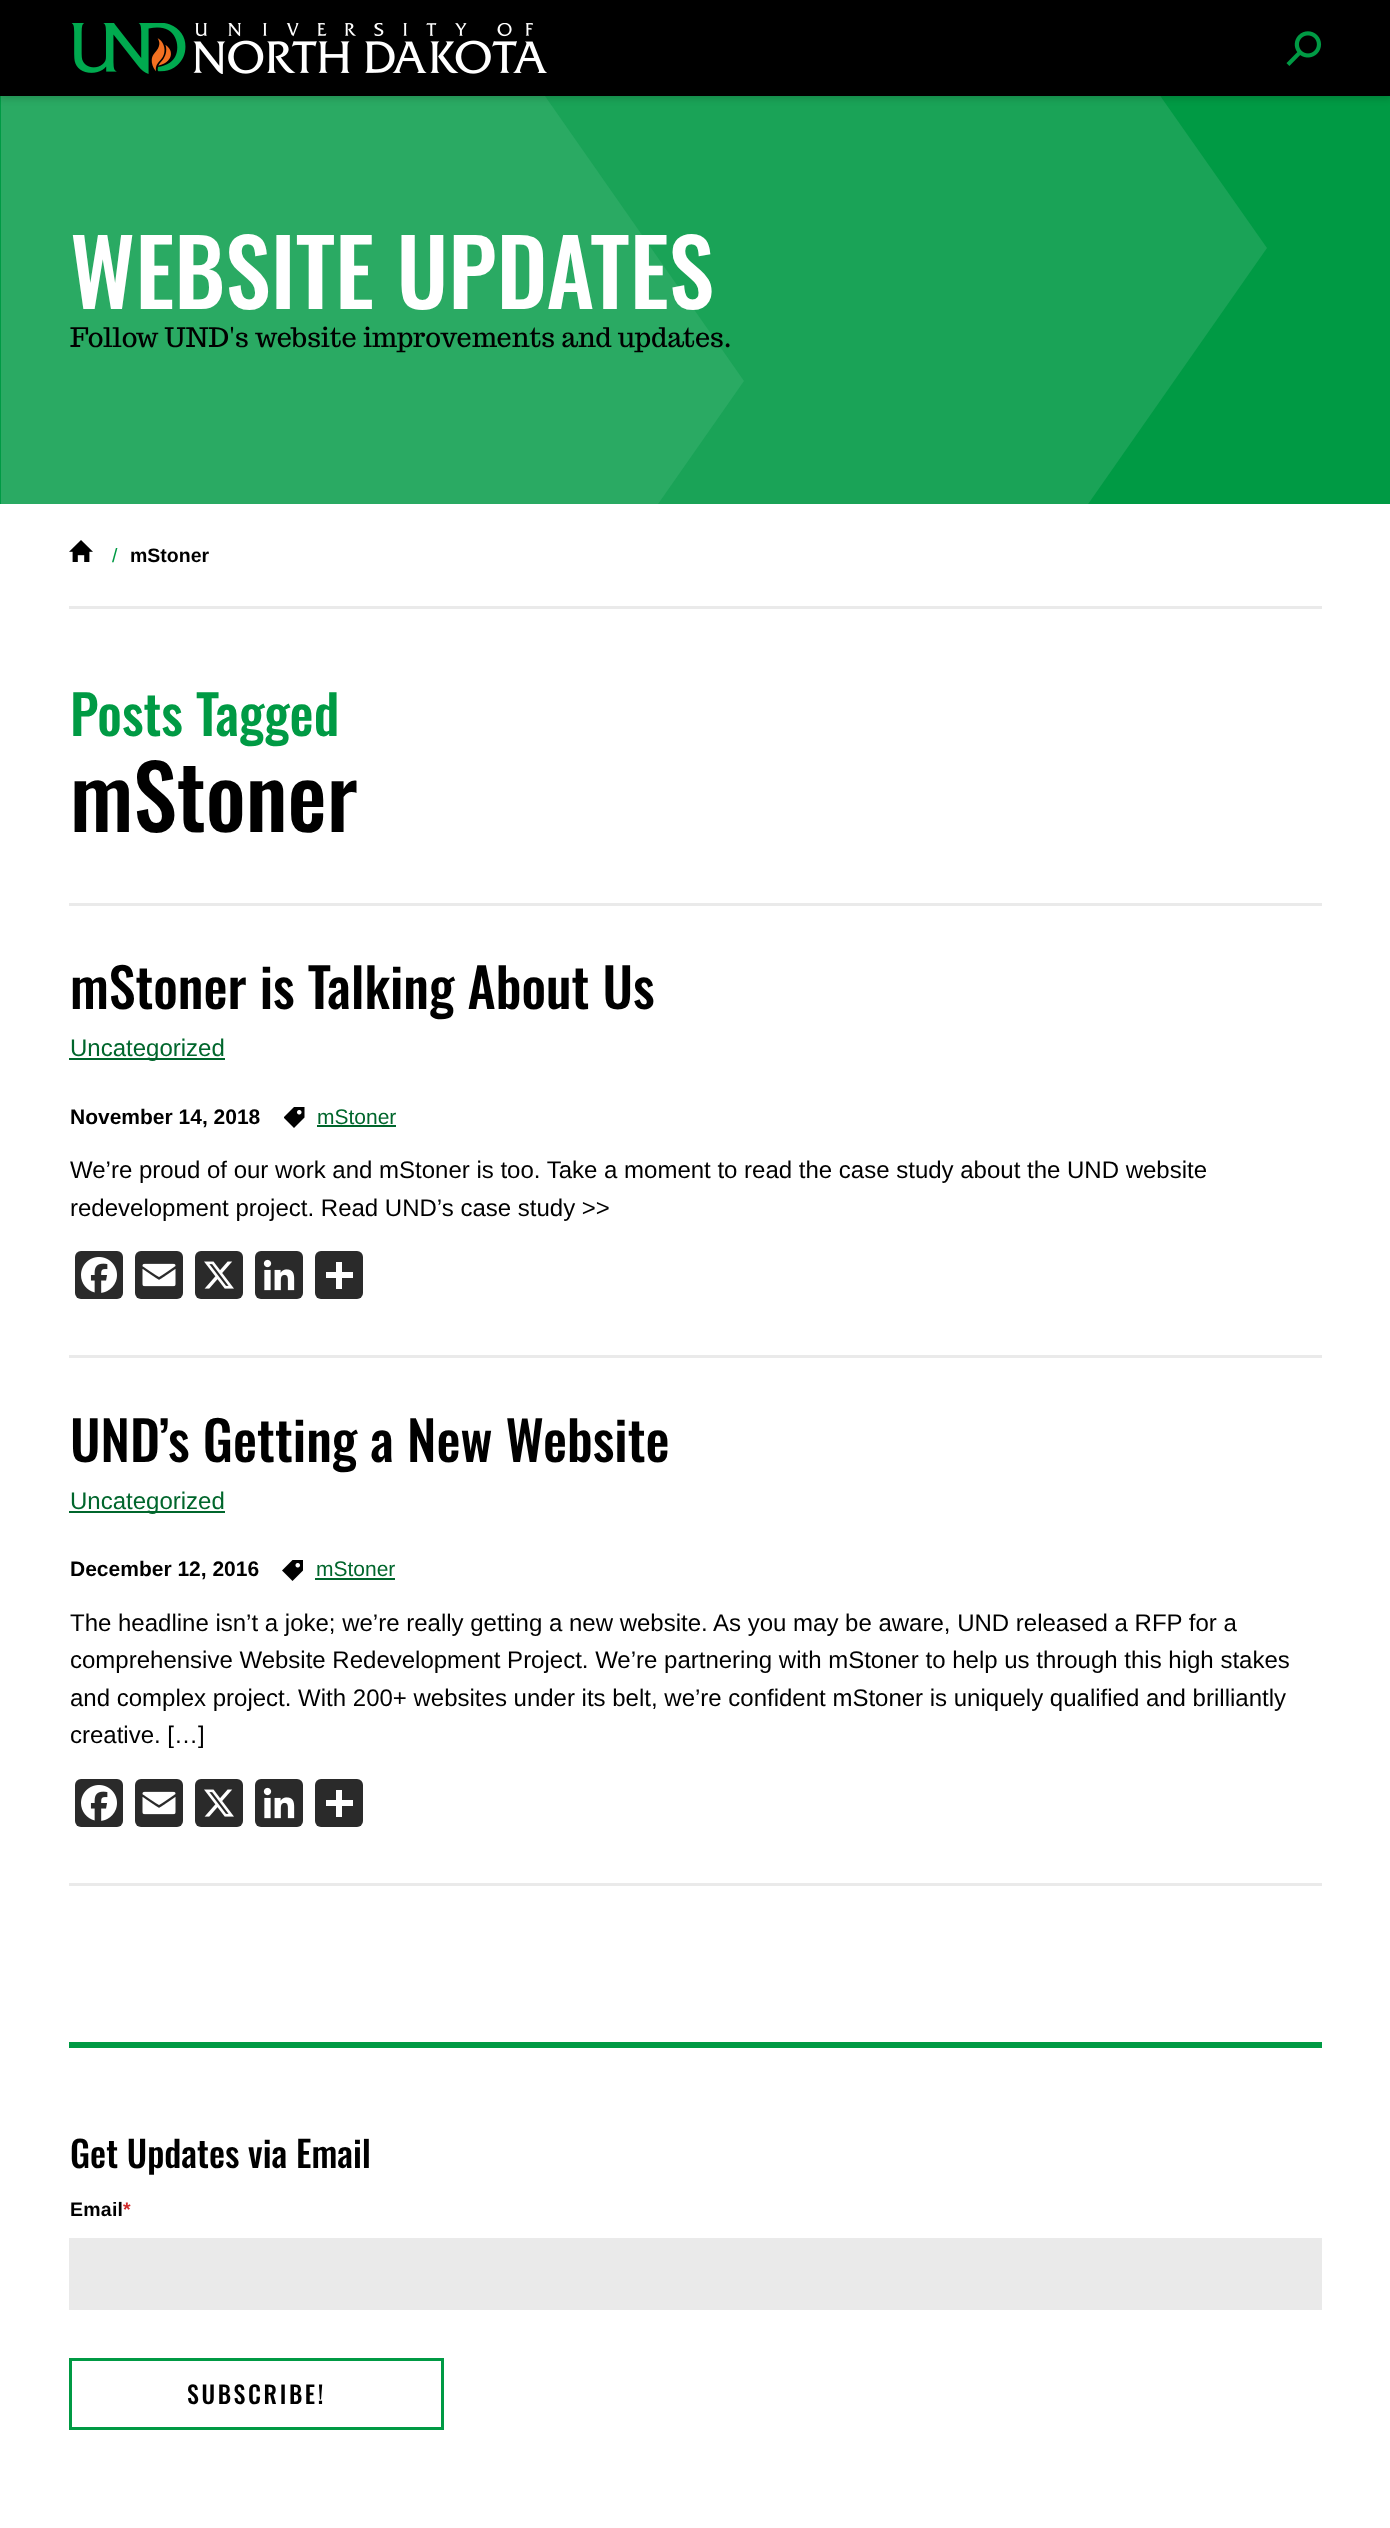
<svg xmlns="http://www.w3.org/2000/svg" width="1390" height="2528">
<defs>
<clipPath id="clip1"><rect y="96" width="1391" height="408"/></clipPath>
</defs>
<rect width="100%" height="100%" fill="#fff"/>
<rect y="96" width="1390" height="408" fill="#009a44"/>
<g clip-path="url(#clip1)">
<path d="M1267 248l-422 604h-844v-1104h915z" fill="#1aa357"/>
<path d="M744 381l-329 471h-414v-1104h301z" fill="#2aaa63"/>
</g>
<rect y="3" width="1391" height="96" fill="#00000026" filter="blur(3px)"/>
<rect width="1390" height="96" fill="#000"/>
<image x="71" y="23" width="476" height="51" href="media/1.png"/>
<image x="1286" y="31" width="36" height="35" href="media/2.png"/>
<text x="70" y="309" style="font-family:Oswald;font-size:91.5px;font-weight:500;fill:#fff">WEBSITE UPDATES</text>
<text x="70" y="347" style="font-family:Trocchi;font-size:27px;fill:#000">Follow UND's website improvements and updates.</text>
<rect x="69" y="606" width="1253" height="3" fill="#eaeaea"/>
<image x="69" y="540" width="24" height="22" href="media/3.png"/>
<text x="112" y="562" style="font-family:Liberation Sans;font-size:19.5px;fill:#009a44">/</text>
<text x="130" y="562" style="font-family:Liberation Sans;font-size:19.5px;font-weight:bold;fill:#000">mStoner</text>
<text x="70" y="736" style="font-family:Oswald;font-size:54px;font-weight:500;fill:#009a44">Posts Tagged</text>
<text x="70" y="832" style="font-family:Oswald;font-size:88px;font-weight:500;fill:#000">mStoner</text>
<rect x="69" y="903" width="1253" height="3" fill="#eaeaea"/>
<text x="70" y="1009" style="font-family:Oswald;font-size:54px;font-weight:500;fill:#000">mStoner is Talking About Us</text>
<rect x="69" y="1058" width="156" height="2" fill="#00662c"/>
<text x="70" y="1056" style="font-family:Liberation Sans;font-size:24px;fill:#00662c">Uncategorized</text>
<text x="70" y="1124" style="font-family:Liberation Sans;font-size:21px;font-weight:bold;fill:#000">November 14, 2018</text>
<image x="284" y="1107" width="21" height="21" href="media/4.png"/>
<text x="317" y="1124" style="font-family:Liberation Sans;font-size:21px;fill:#00662c">mStoner</text>
<rect x="317" y="1125" width="79" height="2" fill="#00662c"/>
<text x="70" y="1178" style="font-family:Liberation Sans;font-size:24px;fill:#000">We’re proud of our work and mStoner is too. Take a moment to read the case study about the UND website</text>
<text x="70" y="1216" style="font-family:Liberation Sans;font-size:24px;fill:#000">redevelopment project. Read UND’s case study &gt;&gt;</text>
<rect x="75" y="1251" width="48" height="48" rx="6" fill="#2a2a2a"/>
<image x="81" y="1257" width="36" height="36" href="media/5.png"/>
<rect x="135" y="1251" width="48" height="48" rx="6" fill="#2a2a2a"/>
<image x="142" y="1263" width="34" height="24" href="media/6.png"/>
<rect x="195" y="1251" width="48" height="48" rx="6" fill="#2a2a2a"/>
<image x="204" y="1261" width="30" height="28" href="media/7.png"/>
<rect x="255" y="1251" width="48" height="48" rx="6" fill="#2a2a2a"/>
<image x="263" y="1259" width="32" height="32" href="media/8.png"/>
<rect x="315" y="1251" width="48" height="48" rx="6" fill="#2a2a2a"/>
<rect x="336" y="1262" width="6" height="27" fill="#fff"/>
<rect x="326" y="1272" width="27" height="6" fill="#fff"/>
<rect x="69" y="1355" width="1253" height="3" fill="#eaeaea"/>
<rect x="69" y="1883" width="1253" height="3" fill="#eaeaea"/>
<text x="70" y="1462" style="font-family:Oswald;font-size:54px;font-weight:500;fill:#000">UND’s Getting a New Website</text>
<rect x="69" y="1511" width="156" height="2" fill="#00662c"/>
<text x="70" y="1509" style="font-family:Liberation Sans;font-size:24px;fill:#00662c">Uncategorized</text>
<text x="70" y="1576" style="font-family:Liberation Sans;font-size:21px;font-weight:bold;fill:#000">December 12, 2016</text>
<image x="282" y="1560" width="21" height="21" href="media/9.png"/>
<text x="316" y="1576" style="font-family:Liberation Sans;font-size:21px;fill:#00662c">mStoner</text>
<rect x="315" y="1578" width="80" height="2" fill="#00662c"/>
<text x="70" y="1631" style="font-family:Liberation Sans;font-size:24px;fill:#000">The headline isn’t a joke; we’re really getting a new website. As you may be aware, UND released a RFP for a</text>
<text x="70" y="1668" style="font-family:Liberation Sans;font-size:24px;fill:#000">comprehensive Website Redevelopment Project. We’re partnering with mStoner to help us through this high stakes</text>
<text x="70" y="1706" style="font-family:Liberation Sans;font-size:24px;fill:#000">and complex project. With 200+ websites under its belt, we’re confident mStoner is uniquely qualified and brilliantly</text>
<text x="70" y="1743" style="font-family:Liberation Sans;font-size:24px;fill:#000">creative. […]</text>
<rect x="75" y="1779" width="48" height="48" rx="6" fill="#2a2a2a"/>
<image x="81" y="1785" width="36" height="36" href="media/5.png"/>
<rect x="135" y="1779" width="48" height="48" rx="6" fill="#2a2a2a"/>
<image x="142" y="1791" width="34" height="24" href="media/6.png"/>
<rect x="195" y="1779" width="48" height="48" rx="6" fill="#2a2a2a"/>
<image x="204" y="1789" width="30" height="28" href="media/7.png"/>
<rect x="255" y="1779" width="48" height="48" rx="6" fill="#2a2a2a"/>
<image x="263" y="1787" width="32" height="32" href="media/8.png"/>
<rect x="315" y="1779" width="48" height="48" rx="6" fill="#2a2a2a"/>
<rect x="336" y="1790" width="6" height="27" fill="#fff"/>
<rect x="326" y="1800" width="27" height="6" fill="#fff"/>
<rect x="69" y="2042" width="1253" height="6" fill="#009a44"/>
<text x="70" y="2168" style="font-family:Oswald;font-size:36px;font-weight:500;fill:#000">Get Updates via Email</text>
<text x="70" y="2216" style="font-family:Liberation Sans;font-size:19.5px;font-weight:bold;letter-spacing:0.25px;fill:#000">Email</text>
<text x="123" y="2216" style="font-family:Liberation Sans;font-size:19.5px;font-weight:bold;letter-spacing:0.25px;fill:#d02a2a">*</text>
<rect x="69" y="2238" width="1253" height="72" fill="#eaeaea"/>
<rect x="70.5" y="2359.5" width="372" height="69" fill="none" stroke="#009a44" stroke-width="3"/>
<text x="187" y="2404" style="font-family:Oswald;font-size:24px;font-weight:500;letter-spacing:2.6px;fill:#000">SUBSCRIBE!</text>
</svg>
